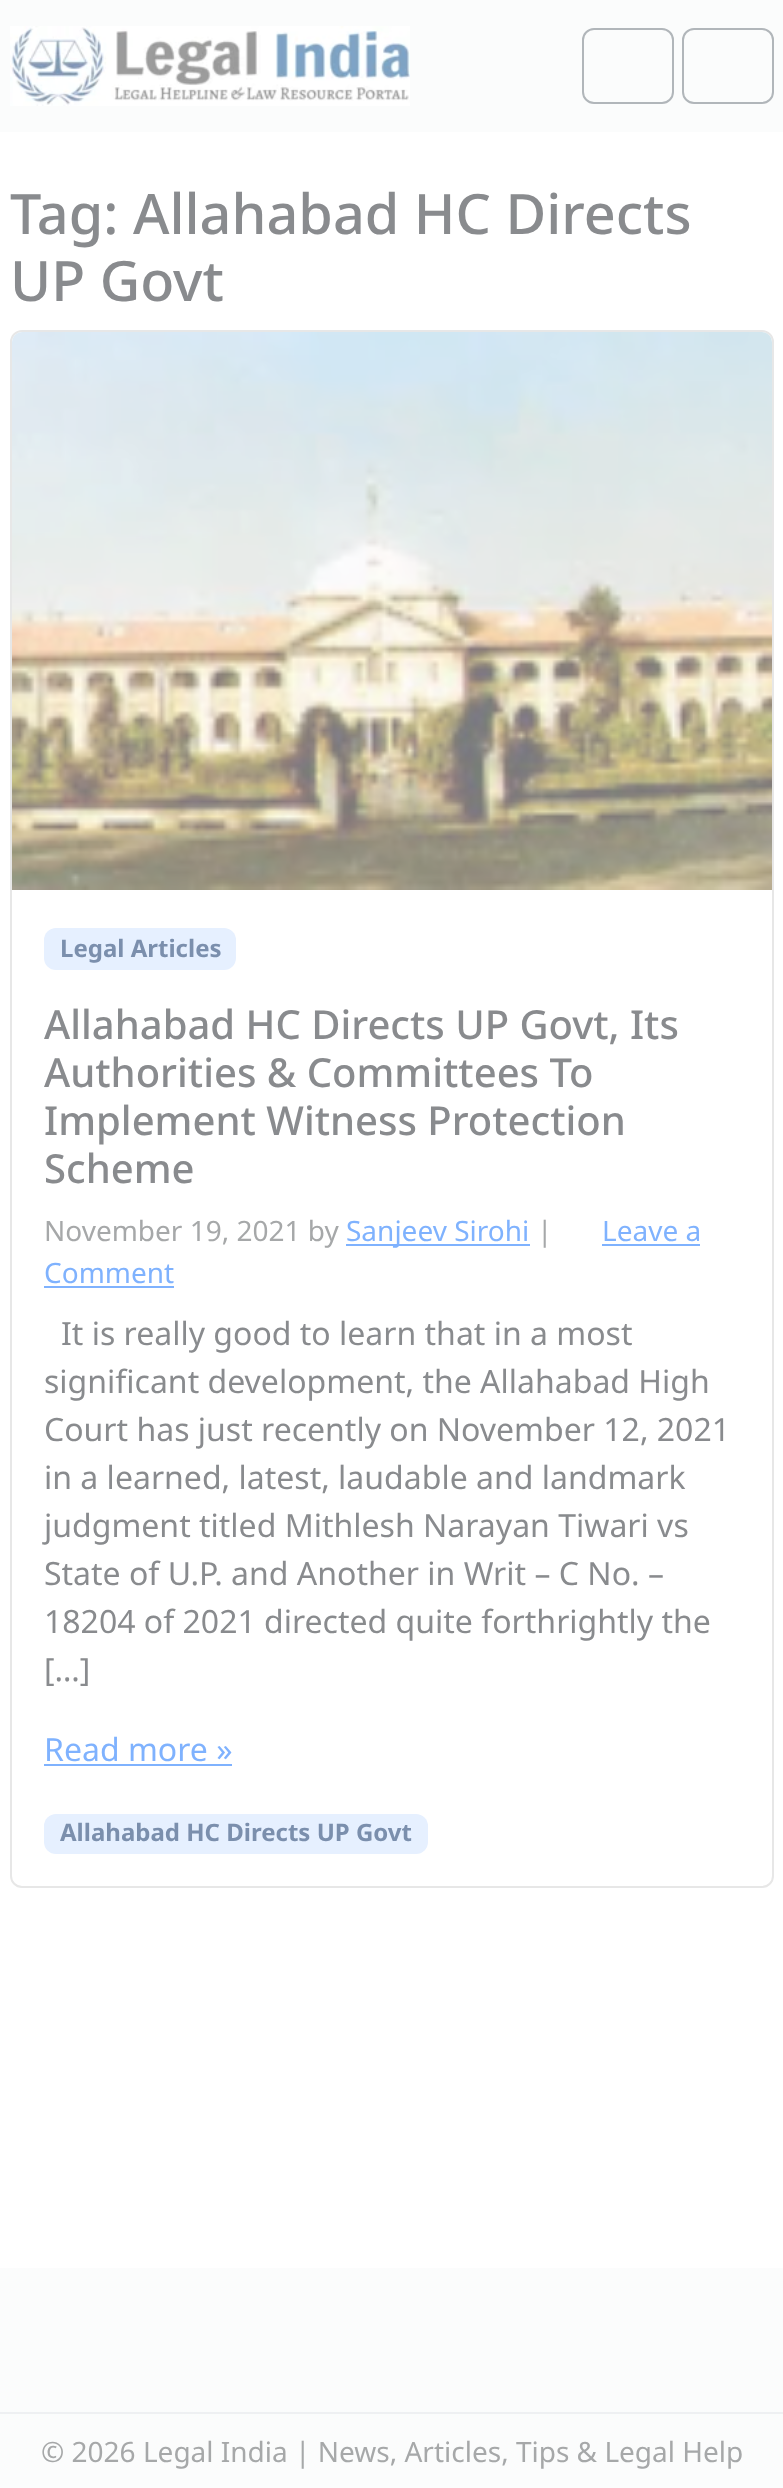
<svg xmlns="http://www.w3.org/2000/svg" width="783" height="2488">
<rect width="100%" height="100%" fill="#fff"/>
<rect width="783" height="132" fill="#fbfcfc"/>
<image x="10" y="26" width="400" height="80" href="media/1.png"/>
<rect x="583" y="29" width="90" height="74" rx="11" fill="none" stroke="#b1b6ba" stroke-width="2"/>
<rect x="683" y="29" width="90" height="74" rx="11" fill="none" stroke="#b1b6ba" stroke-width="2"/>
<text x="10" y="234" style="font-family:Noto Sans;font-size:55.75px;font-weight:500;fill:#898b8e">Tag: Allahabad HC Directs</text>
<text x="10" y="301" style="font-family:Noto Sans;font-size:55.75px;font-weight:500;fill:#898b8e">UP Govt</text>
<rect x="11" y="331" width="762" height="1556" rx="11" fill="none" stroke="#e7e7e7" stroke-width="2"/>
<image x="12" y="332" width="760" height="558" href="media/2.png"/>
<rect x="44" y="928" width="192" height="42" rx="12" fill="#e6f0ff"/>
<text x="60" y="957" style="font-family:Noto Sans;font-size:24px;font-weight:bold;fill:#7b8fad">Legal Articles</text>
<text x="44" y="1039" style="font-family:Noto Sans;font-size:40px;font-weight:500;fill:#898b8e">Allahabad HC Directs UP Govt, Its</text>
<text x="44" y="1087" style="font-family:Noto Sans;font-size:40px;font-weight:500;fill:#898b8e">Authorities &amp; Committees To</text>
<text x="44" y="1135" style="font-family:Noto Sans;font-size:40px;font-weight:500;fill:#898b8e">Implement Witness Protection</text>
<text x="44" y="1183" style="font-family:Noto Sans;font-size:40px;font-weight:500;fill:#898b8e">Scheme</text>
<text x="44" y="1241" style="font-family:Noto Sans;font-size:28px;fill:#a6a8a9">November 19, 2021 by</text>
<rect x="346" y="1244" width="184" height="2" fill="#7fb2fe"/>
<text x="346" y="1241" style="font-family:Noto Sans;font-size:28px;fill:#7fb2fe">Sanjeev Sirohi</text>
<text x="537" y="1241" style="font-family:Noto Sans;font-size:28px;fill:#a6a8a9">|</text>
<text x="602" y="1241" style="font-family:Noto Sans;font-size:28px;fill:#7fb2fe">Leave a</text>
<rect x="602" y="1244" width="98" height="2" fill="#7fb2fe"/>
<text x="44" y="1283" style="font-family:Noto Sans;font-size:28px;fill:#7fb2fe">Comment</text>
<rect x="44" y="1286" width="130" height="2" fill="#7fb2fe"/>
<text x="61" y="1345" style="font-family:Noto Sans;font-size:32px;fill:#898b8e">It is really good to learn that in a most</text>
<text x="44" y="1393" style="font-family:Noto Sans;font-size:32px;fill:#898b8e">significant development, the Allahabad High</text>
<text x="44" y="1441" style="font-family:Noto Sans;font-size:32px;fill:#898b8e">Court has just recently on November 12, 2021</text>
<text x="44" y="1489" style="font-family:Noto Sans;font-size:32px;fill:#898b8e">in a learned, latest, laudable and landmark</text>
<text x="44" y="1537" style="font-family:Noto Sans;font-size:32px;fill:#898b8e">judgment titled Mithlesh Narayan Tiwari vs</text>
<text x="44" y="1585" style="font-family:Noto Sans;font-size:32px;fill:#898b8e">State of U.P. and Another in Writ – C No. –</text>
<text x="44" y="1633" style="font-family:Noto Sans;font-size:32px;fill:#898b8e">18204 of 2021 directed quite forthrightly the</text>
<text x="44" y="1681" style="font-family:Noto Sans;font-size:32px;fill:#898b8e">[…]</text>
<text x="44" y="1761" style="font-family:Noto Sans;font-size:32px;fill:#7fb2fe">Read more »</text>
<rect x="44" y="1764" width="188" height="2" fill="#7fb2fe"/>
<rect x="44" y="1814" width="384" height="40" rx="12" fill="#e6f0ff"/>
<text x="60" y="1841" style="font-family:Noto Sans;font-size:24px;font-weight:bold;fill:#7b8fad">Allahabad HC Directs UP Govt</text>
<rect y="2268" width="783" height="144" fill="#fbfcfc"/>
<rect y="2414" width="783" height="74" fill="#fbfcfc"/>
<rect y="2412" width="783" height="2" fill="#eef0f2"/>
<text x="41" y="2462" style="font-family:Noto Sans;font-size:28px;fill:#a6a8a9">© 2026 Legal India | News, Articles, Tips &amp; Legal Help</text>
</svg>
